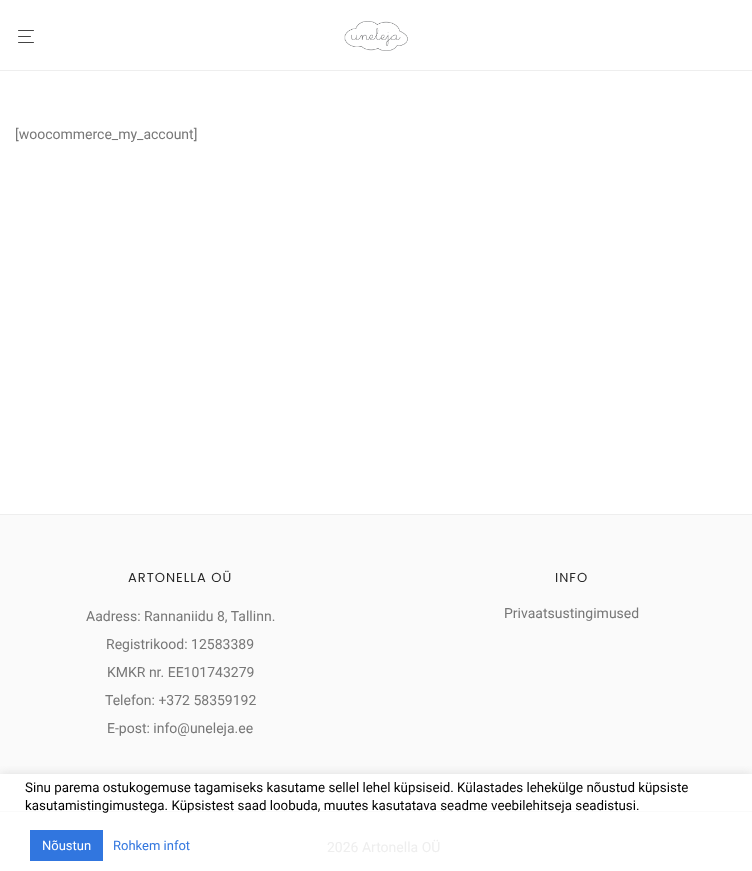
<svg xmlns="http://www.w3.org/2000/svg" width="752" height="871">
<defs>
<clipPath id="clip1"><rect x="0" y="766" width="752" height="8"/></clipPath>
</defs>
<rect width="100%" height="100%" fill="#fff"/>
<rect y="70" width="752" height="1" fill="#eee"/>
<rect x="18" y="30" width="16" height="1" rx="0.5" fill="#444"/>
<rect x="18" y="36" width="13" height="1" rx="0.5" fill="#444"/>
<rect x="18" y="42" width="16" height="1" rx="0.5" fill="#444"/>
<image x="344" y="21" width="64" height="30" href="media/1.png"/>
<text x="15" y="139" style="font-family:Roboto;font-size:14px;fill:#777">[woocommerce_my_account]</text>
<rect y="515" width="752" height="259" fill="#fafafa"/>
<rect y="514" width="752" height="1" fill="#eee"/>
<text x="128" y="582" style="font-family:Poppins;font-size:13px;letter-spacing:1px;fill:#282828">ARTONELLA OÜ</text>
<text x="86" y="621" style="font-family:Roboto;font-size:14px;fill:#777">Aadress: Rannaniidu 8, Tallinn.</text>
<text x="106" y="649" style="font-family:Roboto;font-size:14px;fill:#777">Registrikood: 12583389</text>
<text x="107" y="677" style="font-family:Roboto;font-size:14px;fill:#777">KMKR nr. EE101743279</text>
<text x="105" y="705" style="font-family:Roboto;font-size:14px;fill:#777">Telefon: +372 58359192</text>
<text x="107" y="733" style="font-family:Roboto;font-size:14px;fill:#777">E-post: info@uneleja.ee</text>
<text x="555" y="582" style="font-family:Poppins;font-size:13px;letter-spacing:1px;fill:#282828">INFO</text>
<text x="504" y="618" style="font-family:Roboto;font-size:14px;fill:#777">Privaatsustingimused</text>
<rect y="811" width="752" height="1" fill="#fafafa"/>
<text x="327" y="852" style="font-family:Roboto;font-size:14px;fill:#eee">2026 Artonella OÜ</text>
<g clip-path="url(#clip1)">
<rect y="773" width="752" height="97" fill="#acabab4d" filter="blur(5px)"/>
</g>
<text x="25" y="792" style="font-family:Roboto;font-size:13.35px;fill:#000">Sinu parema ostukogemuse tagamiseks kasutame sellel lehel küpsiseid. Külastades lehekülge nõustud küpsiste</text>
<text x="25" y="810" style="font-family:Roboto;font-size:13.35px;fill:#000">kasutamistingimustega. Küpsistest saad loobuda, muutes kasutatava seadme veebilehitseja seadistusi.</text>
<rect x="30" y="830" width="73" height="31" fill="#3176df"/>
<text x="42" y="850" style="font-family:Roboto;font-size:13px;fill:#fff">Nõustun</text>
<text x="113" y="850" style="font-family:Roboto;font-size:13px;fill:#3176df">Rohkem infot</text>
</svg>
